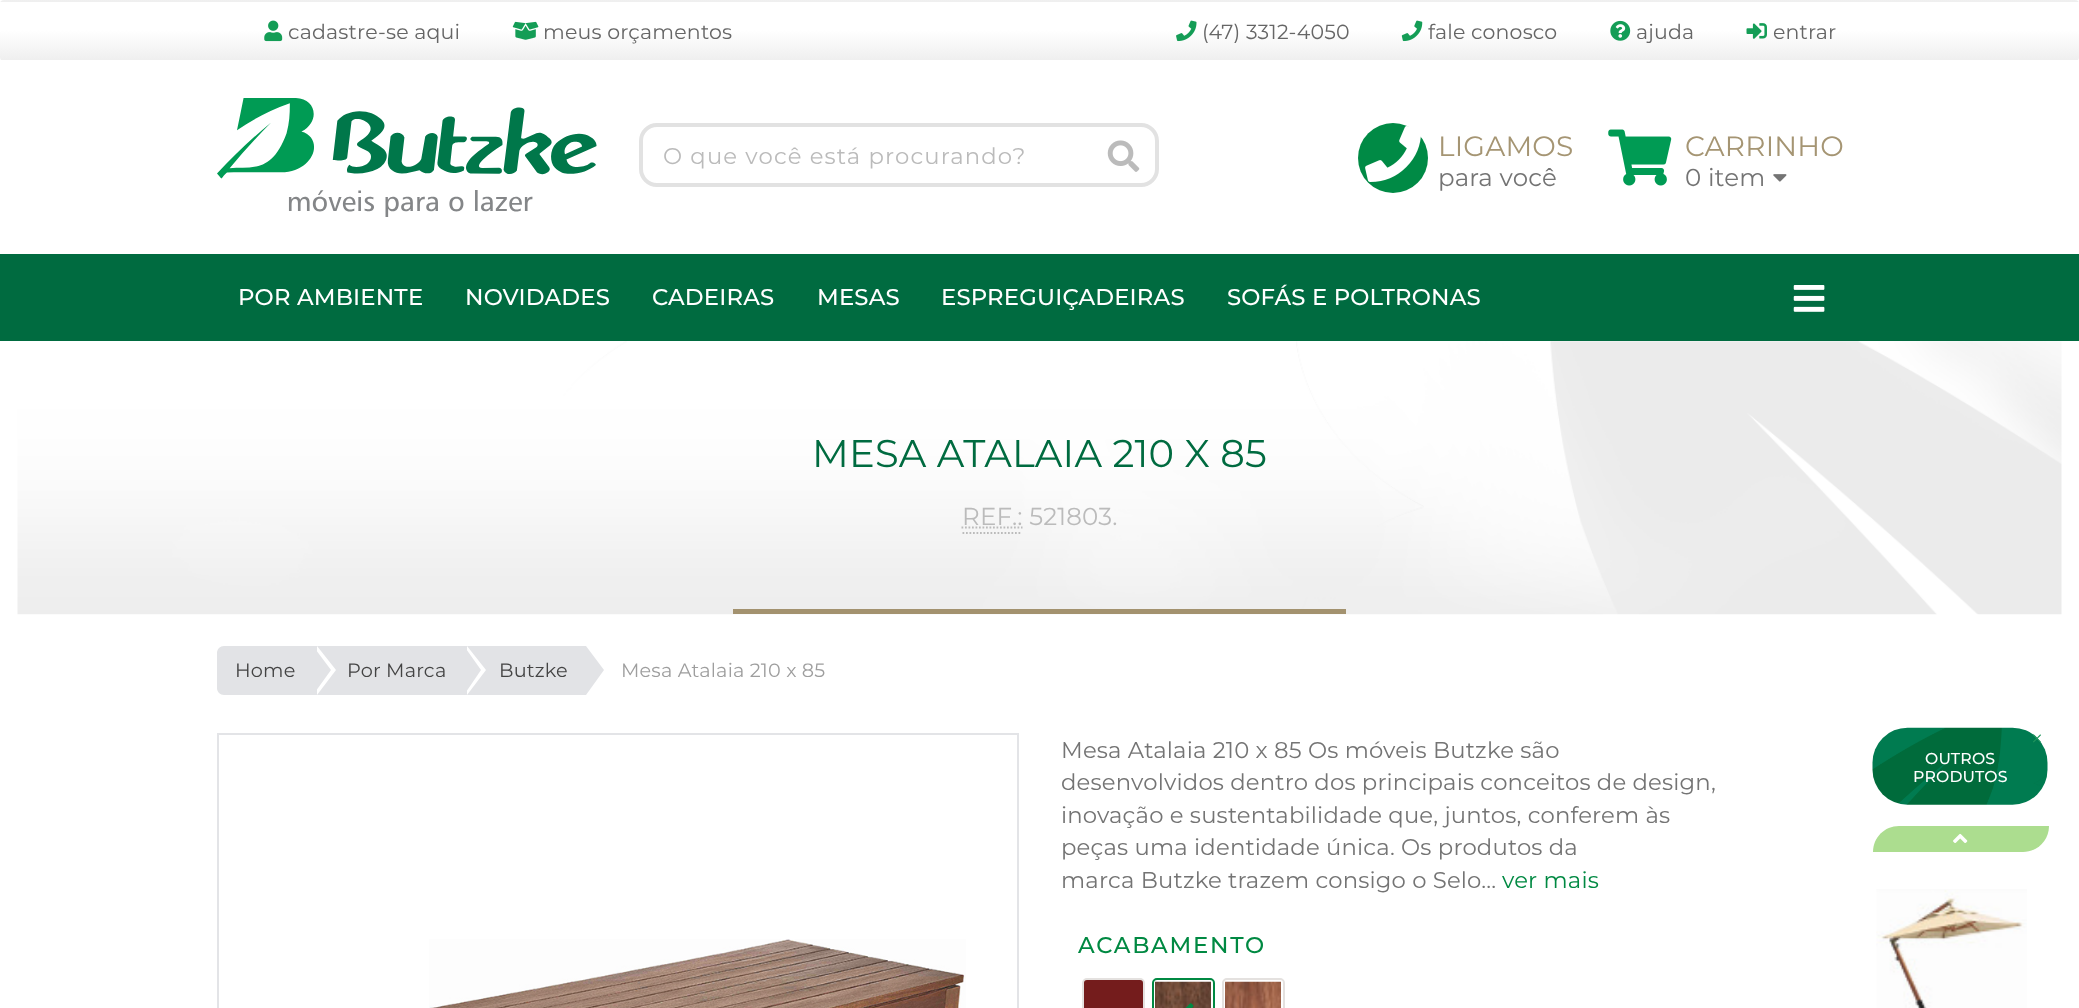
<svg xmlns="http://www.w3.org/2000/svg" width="2079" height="1008">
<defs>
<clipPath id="clip1"><rect width="2079" height="61" rx="4"/></clipPath>
<linearGradient id="g1" gradientUnits="userSpaceOnUse" x1="1040" y1="1.8" x2="1040" y2="-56"><stop offset="0" stop-color="#efefef"/><stop offset="0.51" stop-color="#fff"/></linearGradient>
<linearGradient id="g2" gradientUnits="userSpaceOnUse" x1="1040" y1="60" x2="1040" y2="1.8"><stop offset="0" stop-color="#efefef"/><stop offset="0.51" stop-color="#fff"/></linearGradient>
</defs>
<rect width="100%" height="100%" fill="#fff"/>
<g clip-path="url(#clip1)">
<rect width="2079" height="2" fill="url(#g1)"/>
<rect y="2" width="2079" height="58" fill="url(#g2)"/>
</g>
<image x="264" y="20" width="19" height="22" href="media/1.png"/>
<text x="288" y="39" style="font-family:Montserrat;font-size:20.5px;letter-spacing:0.18px;fill:#666">cadastre-se aqui</text>
<image x="512" y="21" width="27" height="19" href="media/2.png"/>
<text x="543" y="39" style="font-family:Montserrat;font-size:20.5px;letter-spacing:0.18px;fill:#666">meus orçamentos</text>
<image x="1176" y="20" width="21" height="22" href="media/3.png"/>
<text x="1202" y="39" style="font-family:Montserrat;font-size:20.5px;letter-spacing:0.18px;fill:#666">(47) 3312-4050</text>
<image x="1401" y="20" width="22" height="22" href="media/4.png"/>
<text x="1428" y="39" style="font-family:Montserrat;font-size:20.5px;letter-spacing:0.18px;fill:#666">fale conosco</text>
<image x="1610" y="20" width="21" height="21" href="media/5.png"/>
<text x="1636" y="39" style="font-family:Montserrat;font-size:20.5px;letter-spacing:0.18px;fill:#666">ajuda</text>
<image x="1746" y="23" width="21" height="16" href="media/6.png"/>
<text x="1773" y="39" style="font-family:Montserrat;font-size:20.5px;letter-spacing:0.18px;fill:#666">entrar</text>
<image x="217" y="98" width="380" height="119" href="media/7.png"/>
<rect x="641" y="125" width="516" height="60" rx="16" fill="none" stroke="#e2e2e2" stroke-width="4"/>
<text x="663" y="164" style="font-family:Montserrat;font-size:22.75px;letter-spacing:1.15px;fill:#bbb">O que você está procurando?</text>
<image x="1107" y="140" width="33" height="32" href="media/8.png"/>
<circle cx="1393" cy="158" r="35" fill="#008a45"/>
<image x="1365" y="126" width="56" height="56" href="media/9.png"/>
<text x="1438" y="156" style="font-family:Montserrat;font-size:28px;letter-spacing:0.18px;fill:#a59573">LIGAMOS</text>
<text x="1438" y="186" style="font-family:Montserrat;font-size:24.5px;letter-spacing:0.18px;fill:#747474">para você</text>
<image x="1608" y="129" width="64" height="57" href="media/10.png"/>
<text x="1685" y="156" style="font-family:Montserrat;font-size:28px;letter-spacing:0.18px;fill:#a59573">CARRINHO</text>
<text x="1685" y="186" style="font-family:Montserrat;font-size:24.5px;letter-spacing:0.18px;fill:#747474">0 item</text>
<image x="1773" y="174" width="14" height="8" href="media/11.png"/>
<rect y="254" width="2079" height="87" fill="#006b40"/>
<text x="238" y="305" style="font-family:Montserrat;font-size:22.75px;font-weight:500;letter-spacing:0.18px;fill:#fff">POR AMBIENTE</text>
<text x="465" y="305" style="font-family:Montserrat;font-size:22.75px;font-weight:500;letter-spacing:0.18px;fill:#fff">NOVIDADES</text>
<text x="652" y="305" style="font-family:Montserrat;font-size:22.75px;font-weight:500;letter-spacing:0.18px;fill:#fff">CADEIRAS</text>
<text x="817" y="305" style="font-family:Montserrat;font-size:22.75px;font-weight:500;letter-spacing:0.18px;fill:#fff">MESAS</text>
<text x="941" y="305" style="font-family:Montserrat;font-size:22.75px;font-weight:500;letter-spacing:0.18px;fill:#fff">ESPREGUIÇADEIRAS</text>
<text x="1227" y="305" style="font-family:Montserrat;font-size:22.75px;font-weight:500;letter-spacing:0.18px;fill:#fff">SOFÁS E POLTRONAS</text>
<image x="1793" y="285" width="32" height="27" href="media/12.png"/>
<image x="17" y="341" width="2045" height="274" href="media/13.png"/>
<text x="812" y="467" style="font-family:Montserrat;font-size:38.5px;letter-spacing:0.18px;fill:#006b40">MESA ATALAIA 210 X 85</text>
<text x="962" y="525" style="font-family:Montserrat;font-size:24.5px;letter-spacing:0.18px;fill:#bbb">REF.: 521803.</text>
<path d="M962.5 533h59.5m-60.5-5.5h61" fill="none" stroke="#bbb" stroke-width="1.8" stroke-dasharray="1.75 1.75"/>
<rect x="733" y="609" width="613" height="5" fill="#a3926f"/>
<path d="M224 646h89v49h-89c-4 0-7-3-7-7v-35c0-4 3-7 7-7z" fill="#e2e3e6"/>
<rect x="313" y="646" width="273" height="49" fill="#e2e3e6"/>
<path d="M317 695v-49l19 24z" fill="#fff"/>
<path d="M313 695v-49l18 24z" fill="#e2e3e6"/>
<text x="235" y="677" style="font-family:Montserrat;font-size:19.25px;letter-spacing:0.18px;fill:#444">Home</text>
<path d="M467 695v-49l19 24z" fill="#fff"/>
<path d="M464 695v-49l17 24z" fill="#e2e3e6"/>
<text x="347" y="677" style="font-family:Montserrat;font-size:19.25px;letter-spacing:0.18px;fill:#444">Por Marca</text>
<text x="499" y="677" style="font-family:Montserrat;font-size:19.25px;letter-spacing:0.18px;fill:#444">Butzke</text>
<path d="M586 695v-49l18 24z" fill="#e2e3e6"/>
<text x="621" y="677" style="font-family:Montserrat;font-size:19.25px;letter-spacing:0.18px;fill:#9e9e9e">Mesa Atalaia 210 x 85</text>
<rect x="218" y="734" width="800" height="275" fill="none" stroke="#e3e4e7" stroke-width="2"/>
<image x="429" y="939" width="537" height="69" href="media/14.png"/>
<text x="1061" y="758" style="font-family:Montserrat;font-size:22.75px;letter-spacing:0.18px;fill:#747474">Mesa Atalaia 210 x 85 Os móveis Butzke são</text>
<text x="1061" y="790" style="font-family:Montserrat;font-size:22.75px;letter-spacing:0.18px;fill:#747474">desenvolvidos dentro dos principais conceitos de design,</text>
<text x="1061" y="823" style="font-family:Montserrat;font-size:22.75px;letter-spacing:0.18px;fill:#747474">inovação e sustentabilidade que, juntos, conferem às</text>
<text x="1061" y="855" style="font-family:Montserrat;font-size:22.75px;letter-spacing:0.18px;fill:#747474">peças uma identidade única. Os produtos da</text>
<text x="1061" y="888" style="font-family:Montserrat;font-size:22.75px;letter-spacing:0.18px;fill:#747474">marca Butzke trazem consigo o Selo...</text>
<text x="1502" y="888" style="font-family:Montserrat;font-size:22.75px;letter-spacing:0.18px;fill:#008942">ver mais</text>
<text x="1078" y="953" style="font-family:Montserrat;font-size:22.75px;font-weight:500;letter-spacing:1.75px;fill:#008942">ACABAMENTO</text>
<rect x="1083" y="979" width="61" height="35" rx="4" fill="#741c1c" stroke="#e4e1df" stroke-width="2"/>
<image x="1155" y="981" width="56" height="27" href="media/15.png"/>
<rect x="1153" y="979" width="61" height="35" rx="4" fill="none" stroke="#008942" stroke-width="2"/>
<image x="1185" y="1003" width="9" height="5" href="media/16.png"/>
<image x="1225" y="981" width="56" height="27" href="media/17.png"/>
<rect x="1223" y="979" width="61" height="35" rx="4" fill="none" stroke="#e4e1df" stroke-width="2"/>
<image x="1872" y="727" width="176" height="78" href="media/18.png"/>
<text x="2030" y="747" style="font-family:Montserrat;font-size:24.5px;font-weight:300;letter-spacing:0.18px;fill:#22965e">×</text>
<text x="1925" y="764" style="font-family:Montserrat;font-size:15.75px;font-weight:500;letter-spacing:0.18px;fill:#fff">OUTROS</text>
<text x="1913" y="782" style="font-family:Montserrat;font-size:15.75px;font-weight:500;letter-spacing:0.18px;fill:#fff">PRODUTOS</text>
<path d="M1899 826h150c0 14.5-11.5 26-26 26h-150c0-14.5 11.5-26 26-26z" fill="#acdd8f"/>
<image x="1953" y="833" width="15" height="10" href="media/19.png"/>
<image x="1876" y="889" width="151" height="119" href="media/20.png"/>
</svg>
